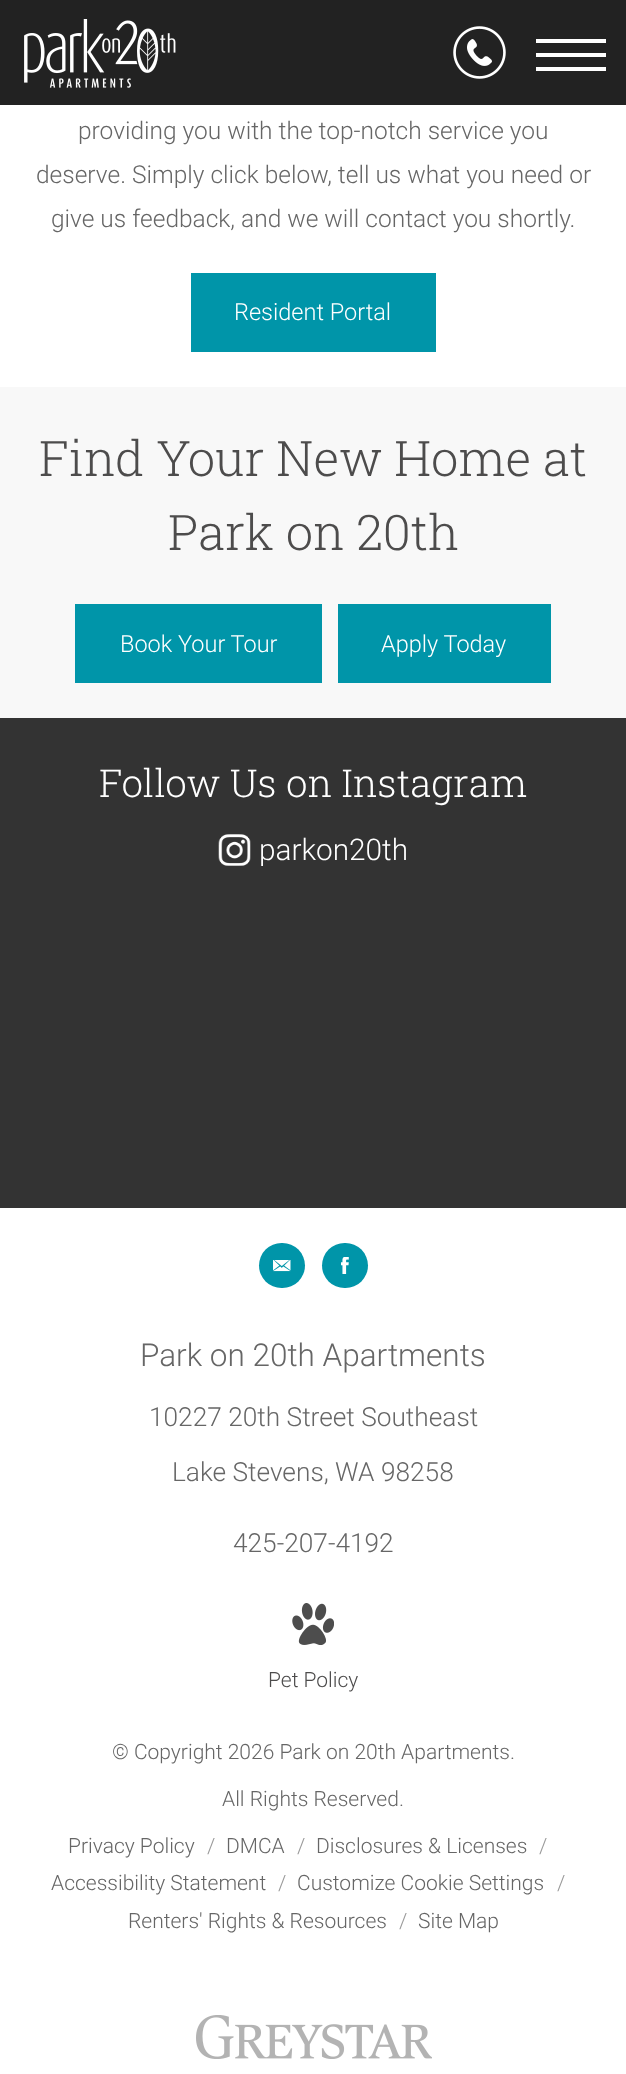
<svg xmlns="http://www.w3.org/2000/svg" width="626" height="2074">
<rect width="100%" height="100%" fill="#fff"/>
<rect width="626" height="105" fill="#222"/>
<image x="24" y="19" width="152" height="69" href="media/1.png"/>
<image x="453" y="26" width="53" height="53" href="media/2.png"/>
<rect x="536" y="39" width="70" height="4" fill="#fff"/>
<rect x="536" y="53" width="70" height="4" fill="#fff"/>
<rect x="536" y="67" width="70" height="4" fill="#fff"/>
<text x="78" y="139" style="font-family:Roboto;font-size:24.5px;font-weight:300;fill:#666">providing you with the top-notch service you</text>
<text x="36" y="183" style="font-family:Roboto;font-size:24.5px;font-weight:300;fill:#666">deserve. Simply click below, tell us what you need or</text>
<text x="51" y="227" style="font-family:Roboto;font-size:24.5px;font-weight:300;fill:#666">give us feedback, and we will contact you shortly.</text>
<rect x="191" y="273" width="245" height="79" fill="#0095a9"/>
<text x="234" y="320" style="font-family:Roboto;font-size:23.5px;font-weight:300;fill:#fff">Resident Portal</text>
<rect y="387" width="626" height="331" fill="#f8f8f8"/>
<text x="39" y="476" style="font-family:Roboto Slab;font-size:49px;font-weight:300;fill:#4d4c4c">Find Your New Home at</text>
<text x="168" y="550" style="font-family:Roboto Slab;font-size:49px;font-weight:300;fill:#4d4c4c">Park on 20th</text>
<rect x="75" y="604" width="247" height="79" fill="#0095a9"/>
<text x="120" y="652" style="font-family:Roboto;font-size:23.5px;font-weight:300;fill:#fff">Book Your Tour</text>
<rect x="338" y="604" width="213" height="79" fill="#0095a9"/>
<text x="381" y="652" style="font-family:Roboto;font-size:23.5px;font-weight:300;fill:#fff">Apply Today</text>
<rect y="718" width="626" height="490" fill="#333"/>
<text x="99" y="797" style="font-family:Roboto Slab;font-size:38.5px;font-weight:300;fill:#fff">Follow Us on Instagram</text>
<image x="218" y="834" width="33" height="32" href="media/3.png"/>
<text x="259" y="860" style="font-family:Roboto;font-size:29.75px;font-weight:300;fill:#fff">parkon20th</text>
<rect x="259" y="1243" width="46" height="45" rx="22.5" fill="#0095a9"/>
<image x="273" y="1260" width="18" height="12" href="media/4.png"/>
<rect x="322" y="1243" width="46" height="45" rx="22.5" fill="#0095a9"/>
<image x="341" y="1257" width="8" height="17" href="media/5.png"/>
<text x="140" y="1366" style="font-family:Roboto;font-size:31.5px;font-weight:300;fill:#666">Park on 20th Apartments</text>
<text x="149" y="1426" style="font-family:Roboto;font-size:26.25px;font-weight:300;fill:#666">10227 20th Street Southeast</text>
<text x="172" y="1481" style="font-family:Roboto;font-size:26.25px;font-weight:300;fill:#666">Lake Stevens, WA 98258</text>
<text x="233" y="1552" style="font-family:Roboto;font-size:26.25px;font-weight:300;fill:#666">425-207-4192</text>
<image x="292" y="1603" width="42" height="42" href="media/6.png"/>
<text x="268" y="1687" style="font-family:Roboto;font-size:21px;font-weight:300;fill:#4d4c4c">Pet Policy</text>
<text x="112" y="1759" style="font-family:Roboto;font-size:21px;font-weight:300;fill:#666">© Copyright 2026 Park on 20th Apartments.</text>
<text x="222" y="1806" style="font-family:Roboto;font-size:21px;font-weight:300;fill:#666">All Rights Reserved.</text>
<text x="68" y="1853" style="font-family:Roboto;font-size:21px;font-weight:300;fill:#666">Privacy Policy</text>
<text x="207" y="1853" style="font-family:Roboto;font-size:21px;font-weight:300;fill:#999">/</text>
<text x="226" y="1853" style="font-family:Roboto;font-size:21px;font-weight:300;fill:#666">DMCA</text>
<text x="297" y="1853" style="font-family:Roboto;font-size:21px;font-weight:300;fill:#999">/</text>
<text x="316" y="1853" style="font-family:Roboto;font-size:21px;font-weight:300;fill:#666">Disclosures &amp; Licenses</text>
<text x="539" y="1853" style="font-family:Roboto;font-size:21px;font-weight:300;fill:#999">/</text>
<text x="51" y="1890" style="font-family:Roboto;font-size:21px;font-weight:300;fill:#666">Accessibility Statement</text>
<text x="278" y="1890" style="font-family:Roboto;font-size:21px;font-weight:300;fill:#999">/</text>
<text x="297" y="1890" style="font-family:Roboto;font-size:21px;font-weight:300;fill:#666">Customize Cookie Settings</text>
<text x="557" y="1890" style="font-family:Roboto;font-size:21px;font-weight:300;fill:#999">/</text>
<text x="128" y="1928" style="font-family:Roboto;font-size:21px;font-weight:300;fill:#666">Renters' Rights &amp; Resources</text>
<text x="399" y="1928" style="font-family:Roboto;font-size:21px;font-weight:300;fill:#999">/</text>
<text x="418" y="1928" style="font-family:Roboto;font-size:21px;font-weight:300;fill:#666">Site Map</text>
<image x="196" y="2015" width="236" height="44" href="media/7.png"/>
</svg>
